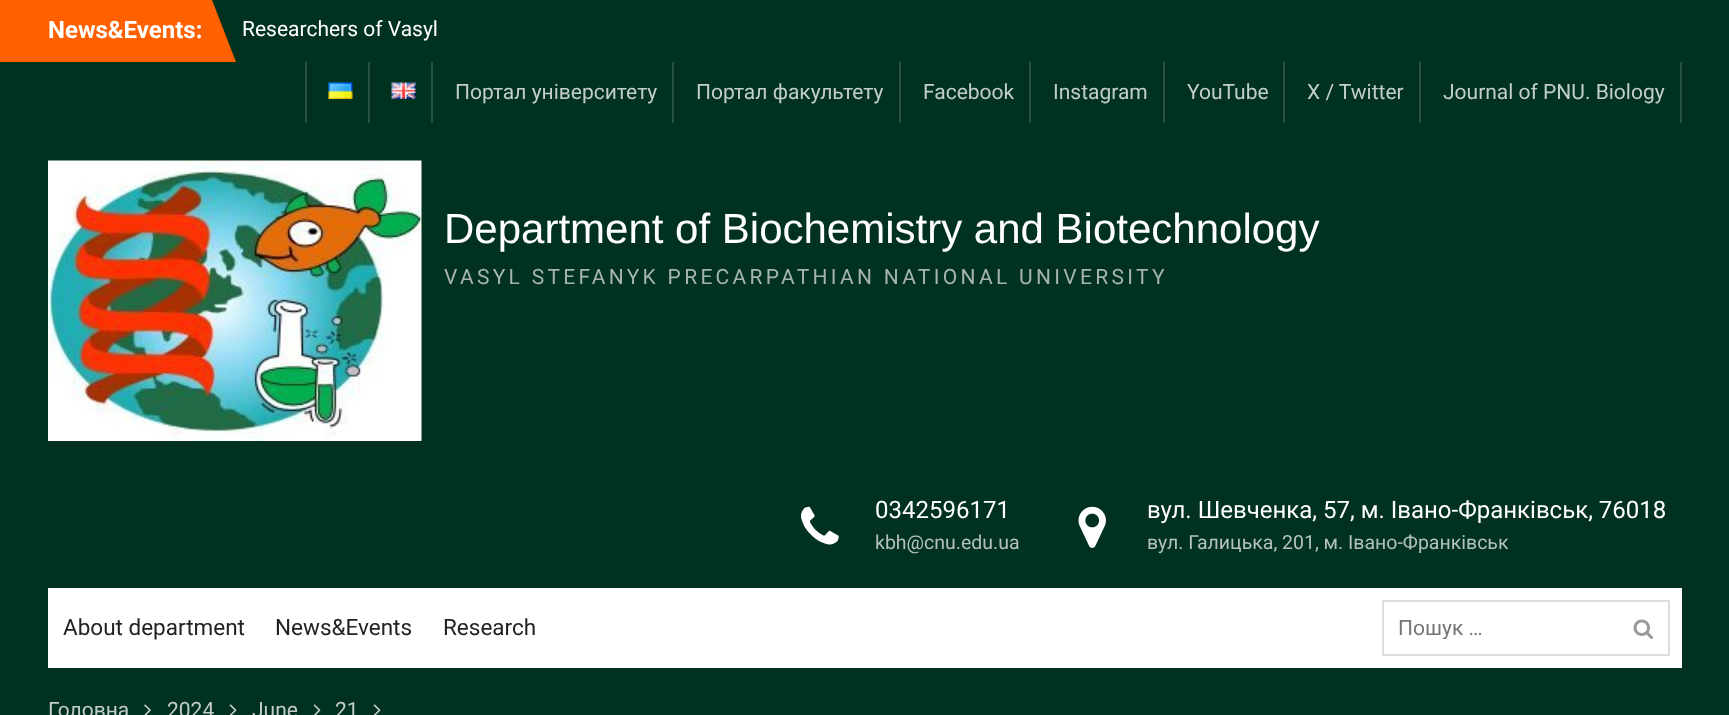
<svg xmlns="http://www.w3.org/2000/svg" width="1729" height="715">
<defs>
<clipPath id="clip1"><rect x="1398" y="615" width="249" height="24"/></clipPath>
</defs>
<rect width="100%" height="100%" fill="#013220"/>
<rect width="212" height="62" fill="#ff6000"/>
<text x="48" y="38" style="font-family:Roboto;font-size:24px;font-weight:bold;fill:#fff">News&amp;Events:</text>
<path d="M212 62v-62l24 62z" fill="#ff6000"/>
<text x="242" y="36" style="font-family:Roboto;font-size:21px;fill:#fff">Researchers of Vasyl</text>
<rect x="368" y="62" width="2" height="61" fill="#275141"/>
<rect x="305" y="62" width="2" height="61" fill="#275141"/>
<image x="328" y="82" width="25" height="17" href="media/1.png"/>
<rect x="431" y="62" width="2" height="61" fill="#275141"/>
<image x="391" y="82" width="25" height="17" href="media/2.png"/>
<rect x="672" y="62" width="2" height="61" fill="#275141"/>
<text x="455" y="99" style="font-family:Roboto;font-size:21px;fill:#c2cec9">Портал університету</text>
<rect x="899" y="62" width="2" height="61" fill="#275141"/>
<text x="696" y="99" style="font-family:Roboto;font-size:21px;fill:#c2cec9">Портал факультету</text>
<rect x="1029" y="62" width="2" height="61" fill="#275141"/>
<text x="923" y="99" style="font-family:Roboto;font-size:21px;fill:#c2cec9">Facebook</text>
<rect x="1163" y="62" width="2" height="61" fill="#275141"/>
<text x="1053" y="99" style="font-family:Roboto;font-size:21px;fill:#c2cec9">Instagram</text>
<rect x="1283" y="62" width="2" height="61" fill="#275141"/>
<text x="1187" y="99" style="font-family:Roboto;font-size:21px;fill:#c2cec9">YouTube</text>
<rect x="1419" y="62" width="2" height="61" fill="#275141"/>
<text x="1307" y="99" style="font-family:Roboto;font-size:21px;fill:#c2cec9">X / Twitter</text>
<rect x="1680" y="62" width="2" height="61" fill="#275141"/>
<text x="1443" y="99" style="font-family:Roboto;font-size:21px;fill:#c2cec9">Journal of PNU. Biology</text>
<image x="48" y="160" width="374" height="281" href="media/3.png"/>
<text x="444" y="243" style="font-family:Liberation Sans;font-size:42px;fill:#fff">Department of Biochemistry and Biotechnology</text>
<text x="444" y="284" style="font-family:Roboto;font-size:21px;letter-spacing:3.3px;fill:#a4b5af">VASYL STEFANYK PRECARPATHIAN NATIONAL UNIVERSITY</text>
<image x="801" y="506" width="38" height="39" href="media/4.png"/>
<text x="875" y="518" style="font-family:Roboto;font-size:24px;fill:#fff">0342596171</text>
<text x="875" y="549" style="font-family:Roboto;font-size:19.5px;fill:#b3c2bc">kbh@cnu.edu.ua</text>
<image x="1078" y="506" width="28" height="42" href="media/5.png"/>
<text x="1147" y="518" style="font-family:Roboto;font-size:24px;fill:#fff">вул. Шевченка, 57, м. Івано-Франківськ, 76018</text>
<text x="1147" y="549" style="font-family:Roboto;font-size:19.5px;fill:#b3c2bc">вул. Галицька, 201, м. Івано-Франківськ</text>
<rect x="48" y="588" width="1634" height="80" fill="#fff"/>
<text x="63" y="635" style="font-family:Roboto;font-size:22.5px;fill:#222">About department</text>
<text x="275" y="635" style="font-family:Roboto;font-size:22.5px;fill:#222">News&amp;Events</text>
<text x="443" y="635" style="font-family:Roboto;font-size:22.5px;fill:#222">Research</text>
<rect x="1383" y="601" width="286" height="54" fill="none" stroke="#ddd" stroke-width="2"/>
<g clip-path="url(#clip1)">
<text x="1398" y="635" style="font-family:Roboto;font-size:21px;fill:#757575">Пошук …</text>
</g>
<image x="1633" y="619" width="20" height="20" href="media/6.png"/>
<text x="48" y="717" style="font-family:Roboto;font-size:21px;fill:#c2cec9">Головна</text>
<image x="144" y="704" width="7" height="11" href="media/7.png"/>
<text x="167" y="717" style="font-family:Roboto;font-size:21px;fill:#c2cec9">2024</text>
<image x="229" y="704" width="8" height="11" href="media/8.png"/>
<text x="252" y="717" style="font-family:Roboto;font-size:21px;fill:#c2cec9">June</text>
<image x="313" y="704" width="8" height="11" href="media/8.png"/>
<text x="335" y="717" style="font-family:Roboto;font-size:21px;fill:#c2cec9">21</text>
<image x="373" y="704" width="8" height="11" href="media/8.png"/>
</svg>
